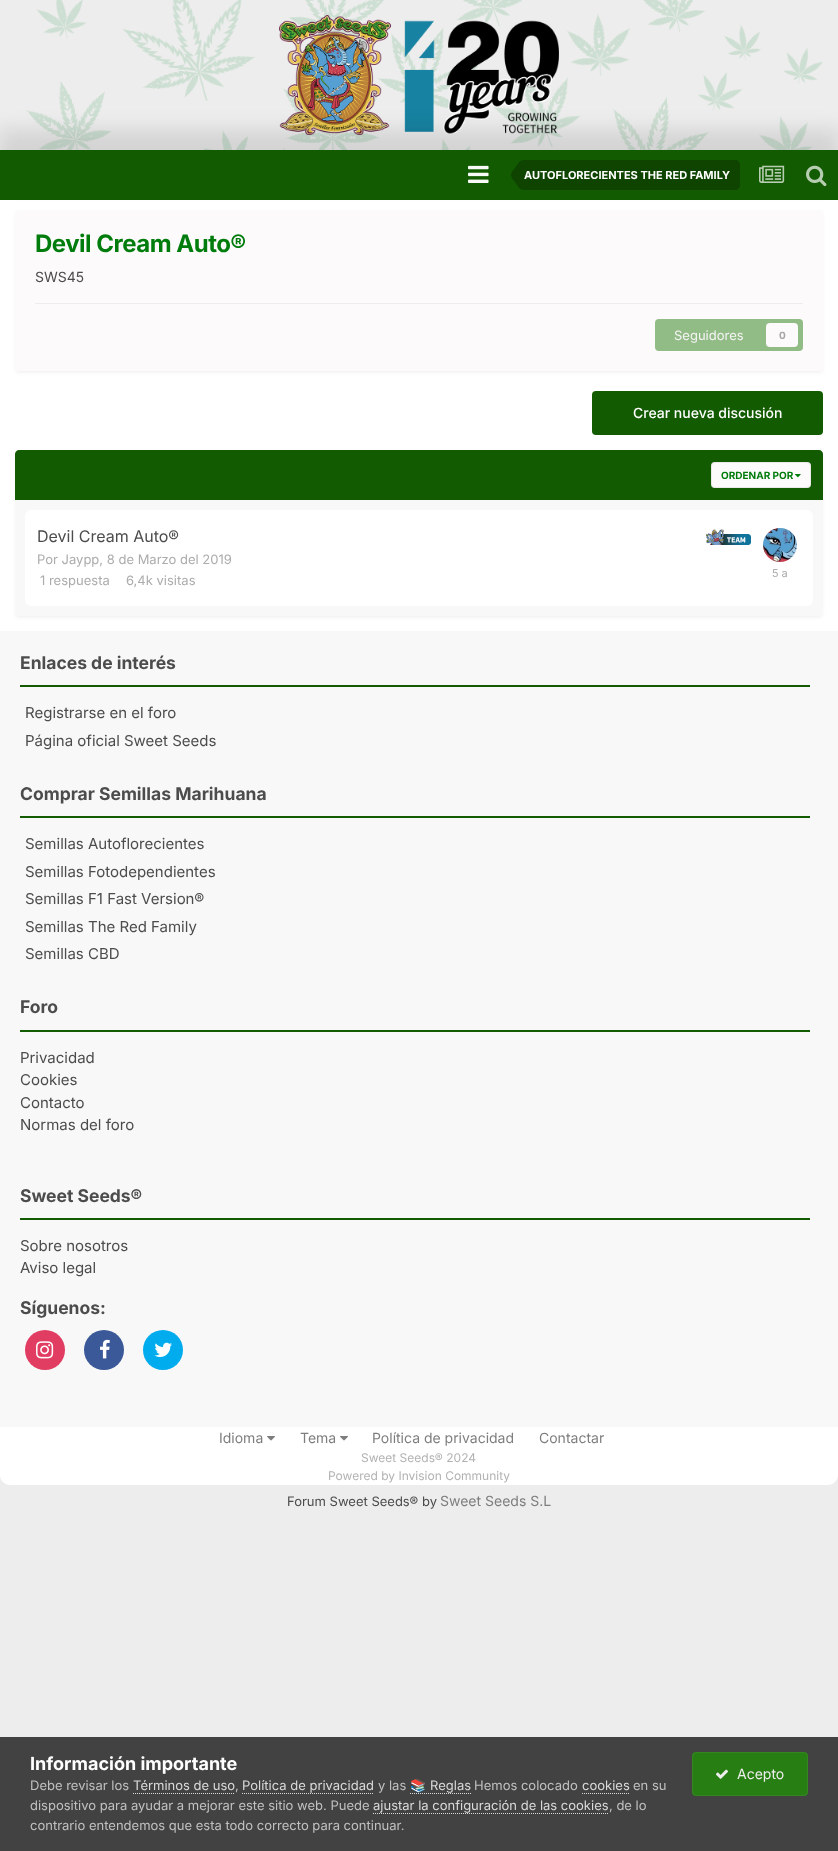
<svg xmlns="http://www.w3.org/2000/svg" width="838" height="1851">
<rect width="100%" height="100%" fill="#ededed"/>
<image x="26" y="0" width="797" height="150" href="media/1.png"/>
<image x="279" y="15" width="280" height="120" href="media/2.png"/>
<rect y="200" width="838" height="431" fill="#fff"/>
<rect x="16" y="213" width="806" height="159" rx="3" fill="#4242421a" filter="blur(2px)"/>
<rect x="15" y="210" width="808" height="161" rx="4" fill="#fcfafa"/>
<rect x="-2" y="129" width="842" height="54" fill="#0000001a" filter="blur(9.5px)"/>
<rect y="150" width="838" height="50" fill="#125b00"/>
<image x="468" y="165" width="21" height="18" href="media/3.png"/>
<path d="M524 160h211c3 0 5 2 5 5v20c0 3-2 5-5 5h-211z" fill="#0e4400"/>
<path d="M524 175v15c-4.5 0-6.5-4.5-9-8c-1.5-2-4-4-4-7zm0 0h-13c0-3 2.5-5 4-7c2.5-3.5 4.5-8 9-8z" fill="#0e4400"/>
<text x="524" y="179" style="font-family:Inter;font-size:11px;font-weight:bold;fill:#fff">AUTOFLORECIENTES THE RED FAMILY</text>
<image x="759" y="165" width="26" height="18" href="media/4.png"/>
<image x="806" y="165" width="21" height="22" href="media/5.png"/>
<text x="35" y="252" style="font-family:Inter;font-size:24px;font-weight:bold;letter-spacing:-0.5px;fill:#007c0c">Devil Cream Auto®</text>
<text x="35" y="282" style="font-family:Inter;font-size:14px;fill:#4c4c4c">SWS45</text>
<rect x="35" y="303" width="768" height="1" fill="#eeecec"/>
<rect x="655" y="319" width="148" height="32" rx="4" fill="#92bc86"/>
<text x="674" y="340" style="font-family:Inter;font-size:13px;fill:#f5f4f4">Seguidores</text>
<rect x="766" y="323" width="32" height="24" rx="4" fill="#fcfafa"/>
<text x="779" y="339" style="font-family:Inter;font-size:10px;font-weight:bold;fill:#a6a5a5">0</text>
<rect x="592" y="391" width="231" height="44" rx="4" fill="#125b00"/>
<text x="633" y="418" style="font-family:Inter;font-size:14px;font-weight:500;fill:#fff">Crear nueva discusión</text>
<rect x="16" y="453" width="806" height="164" rx="3" fill="#4242421a" filter="blur(2px)"/>
<path d="M19 450h800c2 0 4 2 4 4v46h-808v-46c0-2 2-4 4-4z" fill="#125b00"/>
<rect x="711" y="462" width="100" height="26" rx="4" fill="#fcfafa"/>
<image x="795" y="474" width="6" height="4" href="media/6.png"/>
<rect x="711.5" y="462.5" width="99" height="25" rx="3.5" fill="none" stroke="#5050501a"/>
<text x="721" y="479" style="font-family:Inter;font-size:10px;font-weight:bold;fill:#007c0c">ORDENAR POR</text>
<path d="M15 500h808v112c0 2-2 4-4 4h-800c-2 0-4-2-4-4z" fill="#f8f8f8"/>
<rect x="25" y="510" width="788" height="96" rx="6" fill="#fff"/>
<text x="37" y="542" style="font-family:Inter;font-size:16px;fill:#4c4c4c">Devil Cream Auto®</text>
<image x="706" y="529" width="45" height="16" href="media/7.png"/>
<text x="37" y="564" style="font-family:Inter;font-size:13px;fill:#acacac">Por Jaypp, 8 de Marzo del 2019</text>
<image x="763" y="528" width="34" height="34" href="media/8.png"/>
<text x="772" y="577" style="font-family:Inter;font-size:11px;fill:#acacac">5 a</text>
<text x="40" y="585" style="font-family:Inter;font-size:13px;fill:#acacac">1 respuesta</text>
<text x="126" y="585" style="font-family:Inter;font-size:13px;fill:#acacac">6,4k visitas</text>
<rect y="631" width="838" height="796" fill="#f8f8f8"/>
<text x="20" y="669" style="font-family:Inter;font-size:17.5px;font-weight:bold;fill:#4c4c4c">Enlaces de interés</text>
<rect x="20" y="685" width="790" height="2" fill="#125b00"/>
<text x="25" y="718" style="font-family:Inter;font-size:15px;fill:#4c4c4c">Registrarse en el foro</text>
<text x="25" y="746" style="font-family:Inter;font-size:15px;fill:#4c4c4c">Página oficial Sweet Seeds</text>
<text x="20" y="800" style="font-family:Inter;font-size:17.5px;font-weight:bold;fill:#4c4c4c">Comprar Semillas Marihuana</text>
<rect x="20" y="816" width="790" height="2" fill="#125b00"/>
<text x="25" y="849" style="font-family:Inter;font-size:15px;fill:#4c4c4c">Semillas Autoflorecientes</text>
<text x="25" y="877" style="font-family:Inter;font-size:15px;fill:#4c4c4c">Semillas Fotodependientes</text>
<text x="25" y="904" style="font-family:Inter;font-size:15px;fill:#4c4c4c">Semillas F1 Fast Version®</text>
<text x="25" y="932" style="font-family:Inter;font-size:15px;fill:#4c4c4c">Semillas The Red Family</text>
<text x="25" y="959" style="font-family:Inter;font-size:15px;fill:#4c4c4c">Semillas CBD</text>
<text x="20" y="1013" style="font-family:Inter;font-size:17.5px;font-weight:bold;fill:#4c4c4c">Foro</text>
<rect x="20" y="1030" width="790" height="2" fill="#125b00"/>
<text x="20" y="1063" style="font-family:Inter;font-size:15px;fill:#4c4c4c">Privacidad</text>
<text x="20" y="1085" style="font-family:Inter;font-size:15px;fill:#4c4c4c">Cookies</text>
<text x="20" y="1108" style="font-family:Inter;font-size:15px;fill:#4c4c4c">Contacto</text>
<text x="20" y="1130" style="font-family:Inter;font-size:15px;fill:#4c4c4c">Normas del foro</text>
<text x="20" y="1202" style="font-family:Inter;font-size:17.5px;font-weight:bold;fill:#4c4c4c">Sweet Seeds®</text>
<rect x="20" y="1218" width="790" height="2" fill="#125b00"/>
<text x="20" y="1251" style="font-family:Inter;font-size:15px;fill:#4c4c4c">Sobre nosotros</text>
<text x="20" y="1273" style="font-family:Inter;font-size:15px;fill:#4c4c4c">Aviso legal</text>
<text x="20" y="1314" style="font-family:Inter;font-size:17.5px;font-weight:bold;fill:#4c4c4c">Síguenos:</text>
<circle cx="45" cy="1350" r="20" fill="#e13d62"/>
<image x="36" y="1341" width="18" height="18" href="media/9.png"/>
<circle cx="104" cy="1350" r="20" fill="#3b5998"/>
<image x="100" y="1339" width="10" height="20" href="media/10.png"/>
<circle cx="163" cy="1350" r="20" fill="#00aced"/>
<image x="154" y="1342" width="18" height="15" href="media/11.png"/>
<path d="M0 1427h838v48c0 5.5-4.5 10-10 10h-818c-5.5 0-10-4.5-10-10z" fill="#fff"/>
<text x="219" y="1443" style="font-family:Inter;font-size:14px;fill:#7e7e7e">Idioma</text>
<image x="267" y="1436" width="8" height="5" href="media/12.png"/>
<text x="300" y="1443" style="font-family:Inter;font-size:14px;fill:#7e7e7e">Tema</text>
<image x="340" y="1436" width="8" height="5" href="media/12.png"/>
<text x="372" y="1443" style="font-family:Inter;font-size:14px;fill:#7e7e7e">Política de privacidad</text>
<text x="539" y="1443" style="font-family:Inter;font-size:14px;fill:#7e7e7e">Contactar</text>
<text x="361" y="1462" style="font-family:Inter;font-size:12px;fill:#b2b2b2">Sweet Seeds® 2024</text>
<text x="328" y="1480" style="font-family:Inter;font-size:12px;fill:#b2b2b2">Powered by Invision Community</text>
<text x="287" y="1506" style="font-family:Inter;font-size:13px;fill:#4c4c4c">Forum Sweet Seeds® by</text>
<text x="440" y="1506" style="font-family:Inter;font-size:14px;fill:#7e7e7e">Sweet Seeds S.L</text>
<rect y="1737" width="838" height="114" fill="#424242"/>
<text x="30" y="1770" style="font-family:Inter;font-size:18px;font-weight:bold;fill:#fff">Información importante</text>
<text x="30" y="1790" style="font-family:Inter;font-size:13px;fill:#c0c0c0">Debe revisar los</text>
<text x="133" y="1790" style="font-family:Inter;font-size:13px;fill:#dadada">Términos de uso</text>
<path d="M133 1793.5h102" fill="none" stroke="#dadada" stroke-dasharray="1 1"/>
<text x="235" y="1790" style="font-family:Inter;font-size:13px;fill:#c0c0c0">,</text>
<text x="242" y="1790" style="font-family:Inter;font-size:13px;fill:#dadada">Política de privacidad</text>
<path d="M242 1793.5h132" fill="none" stroke="#dadada" stroke-dasharray="1 1"/>
<text x="378" y="1790" style="font-family:Inter;font-size:13px;fill:#c0c0c0">y las</text>
<text x="410" y="1790" style="font-family:Noto Color Emoji;font-size:13px;fill:#dadada">📚</text>
<text x="430" y="1790" style="font-family:Inter;font-size:13px;fill:#dadada">Reglas</text>
<path d="M410 1793.5h61" fill="none" stroke="#dadada" stroke-dasharray="1 1"/>
<text x="474" y="1790" style="font-family:Inter;font-size:13px;fill:#c0c0c0">Hemos colocado</text>
<text x="582" y="1790" style="font-family:Inter;font-size:13px;fill:#dadada">cookies</text>
<path d="M582 1793.5h48" fill="none" stroke="#dadada" stroke-dasharray="1 1"/>
<text x="633" y="1790" style="font-family:Inter;font-size:13px;fill:#c0c0c0">en su</text>
<text x="30" y="1810" style="font-family:Inter;font-size:13px;fill:#c0c0c0">dispositivo para ayudar a mejorar este sitio web. Puede</text>
<text x="373" y="1810" style="font-family:Inter;font-size:13px;fill:#dadada">ajustar la configuración de las cookies</text>
<path d="M373 1813.5h236" fill="none" stroke="#dadada" stroke-dasharray="1 1"/>
<text x="609" y="1810" style="font-family:Inter;font-size:13px;fill:#c0c0c0">, de lo</text>
<text x="30" y="1830" style="font-family:Inter;font-size:13px;fill:#c0c0c0">contrario entendemos que esta todo correcto para continuar.</text>
<rect x="692" y="1752" width="116" height="44" rx="4" fill="#277e12"/>
<rect x="692.5" y="1752.5" width="115" height="43" rx="3.5" fill="none" stroke="#eeeeee12"/>
<image x="716" y="1769" width="12" height="10" href="media/13.png"/>
<text x="737" y="1779" style="font-family:Inter;font-size:14px;fill:#eee">Acepto</text>
</svg>
